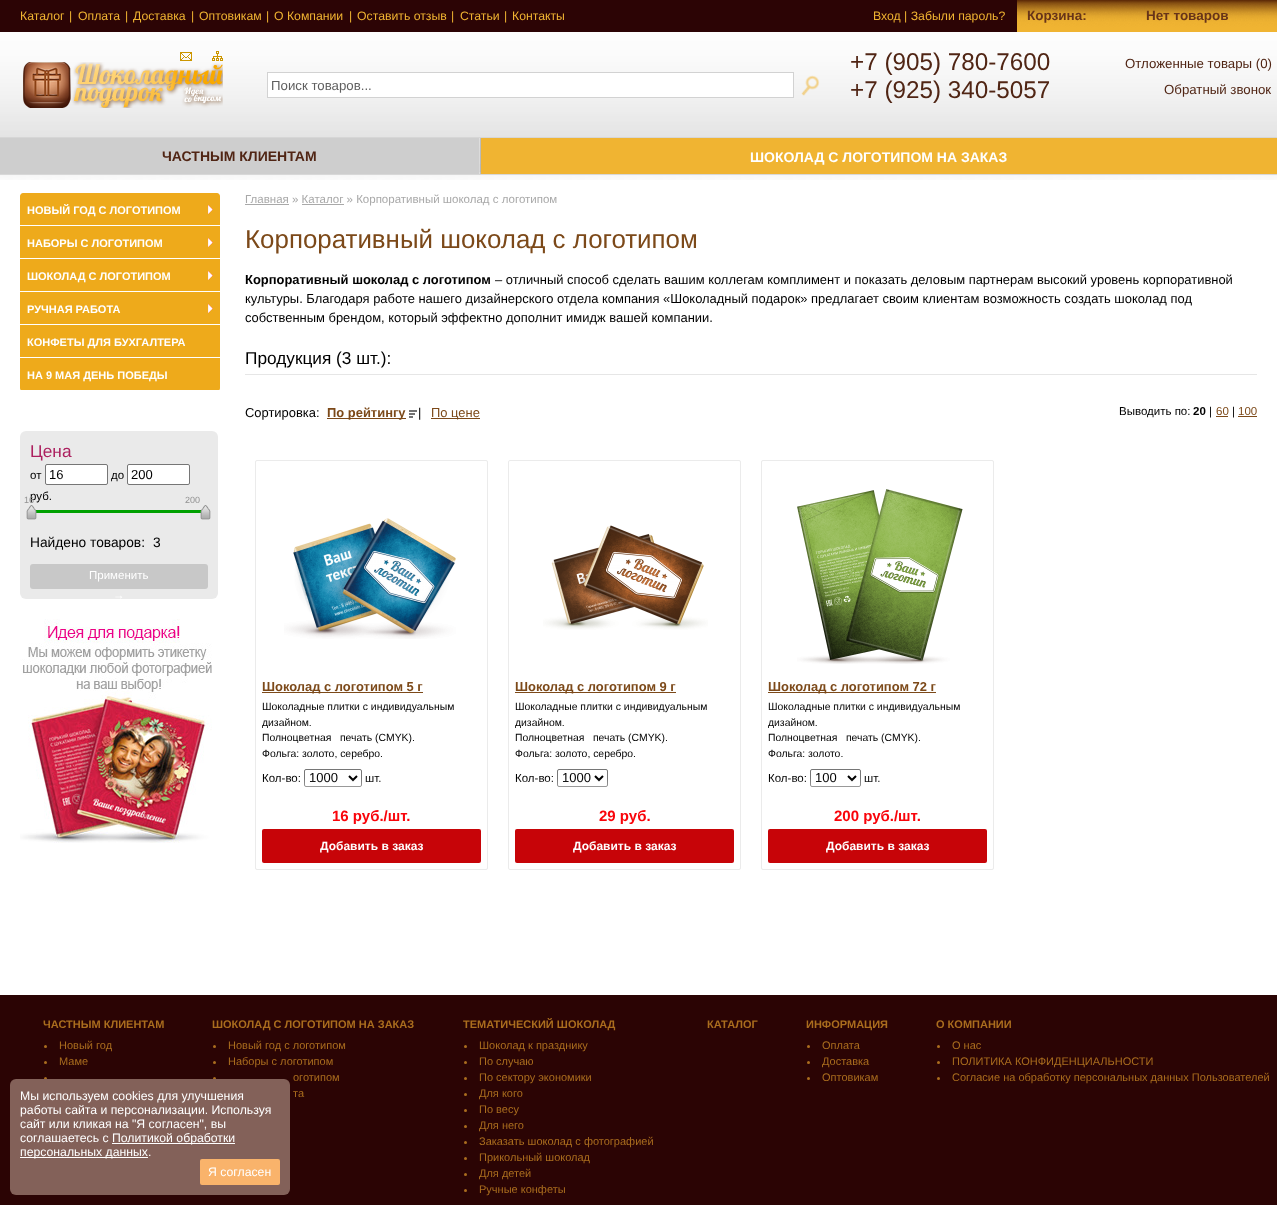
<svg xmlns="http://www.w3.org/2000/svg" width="1277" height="1205">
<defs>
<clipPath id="clip1"><rect x="20" y="193" width="200" height="198" rx="3"/></clipPath>
</defs>
<rect width="100%" height="100%" fill="#fff"/>
<image x="0" y="32" width="1277" height="148" href="media/1.png"/>
<rect width="1017" height="32" fill="#2c0405"/>
<text x="20" y="20" style="font-family:Liberation Sans;font-size:12.25px;fill:#f0b432">Каталог</text>
<text x="69" y="20" style="font-family:Liberation Sans;font-size:12.25px;fill:#f0b432">|</text>
<text x="78" y="20" style="font-family:Liberation Sans;font-size:12.25px;fill:#f0b432">Оплата</text>
<text x="125" y="20" style="font-family:Liberation Sans;font-size:12.25px;fill:#f0b432">|</text>
<text x="133" y="20" style="font-family:Liberation Sans;font-size:12.25px;fill:#f0b432">Доставка</text>
<text x="191" y="20" style="font-family:Liberation Sans;font-size:12.25px;fill:#f0b432">|</text>
<text x="199" y="20" style="font-family:Liberation Sans;font-size:12.25px;fill:#f0b432">Оптовикам</text>
<text x="266" y="20" style="font-family:Liberation Sans;font-size:12.25px;fill:#f0b432">|</text>
<text x="274" y="20" style="font-family:Liberation Sans;font-size:12.25px;fill:#f0b432">О Компании</text>
<text x="349" y="20" style="font-family:Liberation Sans;font-size:12.25px;fill:#f0b432">|</text>
<text x="357" y="20" style="font-family:Liberation Sans;font-size:12.25px;fill:#f0b432">Оставить отзыв</text>
<text x="451" y="20" style="font-family:Liberation Sans;font-size:12.25px;fill:#f0b432">|</text>
<text x="460" y="20" style="font-family:Liberation Sans;font-size:12.25px;fill:#f0b432">Статьи</text>
<text x="504" y="20" style="font-family:Liberation Sans;font-size:12.25px;fill:#f0b432">|</text>
<text x="512" y="20" style="font-family:Liberation Sans;font-size:12.25px;fill:#f0b432">Контакты</text>
<text x="873" y="20" style="font-family:Liberation Sans;font-size:12.25px;fill:#f0b432">Вход | Забыли пароль?</text>
<image x="1017" y="0" width="260" height="32" href="media/2.png"/>
<text x="1027" y="20" style="font-family:Liberation Sans;font-size:13.5px;font-weight:bold;fill:#673419">Корзина:</text>
<text x="1146" y="20" style="font-family:Liberation Sans;font-size:13.5px;font-weight:bold;fill:#673419">Нет товаров</text>
<image x="180" y="52" width="12" height="9" href="media/3.png"/>
<image x="212" y="51" width="11" height="10" href="media/4.png"/>
<image x="23" y="62" width="200" height="46" href="media/5.png"/>
<rect x="267.5" y="72.5" width="526" height="25" fill="#fff" stroke="#d2d2d2"/>
<text x="271" y="90" style="font-family:Liberation Sans;font-size:13.25px;fill:#5f5f5f">Поиск товаров...</text>
<image x="801" y="75" width="19" height="21" href="media/6.png"/>
<text x="850" y="70" style="font-family:Liberation Sans;font-size:24.25px;fill:#502514">+7 (905) 780-7600</text>
<text x="850" y="98" style="font-family:Liberation Sans;font-size:24.25px;fill:#502514">+7 (925) 340-5057</text>
<text x="1125" y="68" style="font-family:Liberation Sans;font-size:13.25px;fill:#502514">Отложенные товары (0)</text>
<text x="1164" y="94" style="font-family:Liberation Sans;font-size:13.25px;fill:#502514">Обратный звонок</text>
<path d="M23 193h194c1.5 0 3 1.5 3 3v29h-200v-29c0-1.5 1.5-3 3-3z" fill="#eeaa1b"/>
<text x="27" y="214" style="font-family:Liberation Sans;font-size:11px;font-weight:bold;fill:#fff">НОВЫЙ ГОД С ЛОГОТИПОМ</text>
<image x="208" y="205" width="5" height="9" href="media/7.png"/>
<rect x="20" y="226" width="200" height="32" fill="#eeaa1b"/>
<text x="27" y="247" style="font-family:Liberation Sans;font-size:11px;font-weight:bold;fill:#fff">НАБОРЫ С ЛОГОТИПОМ</text>
<image x="208" y="238" width="5" height="9" href="media/7.png"/>
<rect x="20" y="259" width="200" height="32" fill="#eeaa1b"/>
<text x="27" y="280" style="font-family:Liberation Sans;font-size:11px;font-weight:bold;fill:#fff">ШОКОЛАД С ЛОГОТИПОМ</text>
<image x="208" y="271" width="5" height="9" href="media/7.png"/>
<rect x="20" y="292" width="200" height="32" fill="#eeaa1b"/>
<text x="27" y="313" style="font-family:Liberation Sans;font-size:11px;font-weight:bold;fill:#fff">РУЧНАЯ РАБОТА</text>
<image x="208" y="304" width="5" height="9" href="media/7.png"/>
<rect x="20" y="325" width="200" height="32" fill="#eeaa1b"/>
<text x="27" y="346" style="font-family:Liberation Sans;font-size:11px;font-weight:bold;fill:#fff">КОНФЕТЫ ДЛЯ БУХГАЛТЕРА</text>
<g clip-path="url(#clip1)">
<rect x="20" y="358" width="200" height="32" fill="#eeaa1b"/>
</g>
<text x="27" y="379" style="font-family:Liberation Sans;font-size:11px;font-weight:bold;fill:#fff">НА 9 МАЯ ДЕНЬ ПОБЕДЫ</text>
<rect x="20" y="431" width="198" height="168" rx="6" fill="#eaeaea"/>
<text x="30" y="457" style="font-family:Liberation Sans;font-size:17.25px;fill:#ac205f">Цена</text>
<text x="30" y="479" style="font-family:Liberation Sans;font-size:11.5px;fill:#000">от</text>
<rect x="45.5" y="464.5" width="62" height="20" rx="1.5" fill="#fff" stroke="#767676"/>
<text x="49" y="479" style="font-family:Liberation Sans;font-size:13px;fill:#000">16</text>
<text x="111" y="479" style="font-family:Liberation Sans;font-size:11.5px;fill:#000">до</text>
<rect x="127.5" y="464.5" width="62" height="20" rx="1.5" fill="#fff" stroke="#767676"/>
<text x="131" y="479" style="font-family:Liberation Sans;font-size:13px;fill:#000">200</text>
<text x="30" y="500" style="font-family:Liberation Sans;font-size:11.5px;fill:#000">руб.</text>
<text x="24" y="503" style="font-family:Liberation Sans;font-size:9px;fill:#929292">16</text>
<text x="185" y="503" style="font-family:Liberation Sans;font-size:9px;fill:#929292">200</text>
<rect x="32" y="510" width="174" height="3" fill="#00a101"/>
<image x="26" y="505" width="11" height="15" href="media/8.png"/>
<image x="200" y="505" width="11" height="15" href="media/9.png"/>
<text x="30" y="547" style="font-family:Liberation Sans;font-size:13.75px;fill:#000">Найдено товаров:</text>
<text x="153" y="547" style="font-family:Liberation Sans;font-size:13.75px;fill:#000">3</text>
<rect x="30" y="564" width="178" height="25" rx="3" fill="#c8c8c8"/>
<text x="89" y="579" style="font-family:Liberation Sans;font-size:11.5px;fill:#fff">Применить</text>
<text x="113" y="599" style="font-family:Liberation Sans;font-size:11.5px;fill:#fff">→</text>
<image x="20" y="619" width="192" height="224" href="media/10.png"/>
<rect x="245" y="204" width="44" height="1" fill="#a9a9a9"/>
<text x="245" y="203" style="font-family:Liberation Sans;font-size:11.5px;fill:#a9a9a9">Главная » Каталог » Корпоративный шоколад с логотипом</text>
<rect x="302" y="204" width="42" height="1" fill="#a9a9a9"/>
<text x="245" y="248" style="font-family:Liberation Sans;font-size:25.9px;fill:#7c4919">Корпоративный шоколад с логотипом</text>
<text x="245" y="284" style="font-family:Liberation Sans;font-size:12.95px;font-weight:bold;fill:#000">Корпоративный шоколад с логотипом</text>
<text x="495" y="284" style="font-family:Liberation Sans;font-size:12.95px;fill:#000">– отличный способ сделать вашим коллегам комплимент и показать деловым партнерам высокий уровень корпоративной</text>
<text x="245" y="303" style="font-family:Liberation Sans;font-size:12.95px;fill:#000">культуры. Благодаря работе нашего дизайнерского отдела компания «Шоколадный подарок» предлагает своим клиентам возможность создать шоколад под</text>
<text x="245" y="322" style="font-family:Liberation Sans;font-size:12.95px;fill:#000">собственным брендом, который эффектно дополнит имидж вашей компании.</text>
<text x="245" y="364" style="font-family:Liberation Sans;font-size:17.25px;fill:#000">Продукция (3 шт.):</text>
<rect x="245" y="374" width="1012" height="1" fill="#e6e6e6"/>
<text x="245" y="417" style="font-family:Liberation Sans;font-size:12.95px;fill:#000">Сортировка:</text>
<rect x="327" y="418" width="79" height="1" fill="#7c4919"/>
<text x="327" y="417" style="font-family:Liberation Sans;font-size:12.95px;font-weight:bold;fill:#7c4919">По рейтингу</text>
<image x="409" y="410" width="8" height="8" href="media/11.png"/>
<text x="418" y="417" style="font-family:Liberation Sans;font-size:12.95px;fill:#000">|</text>
<rect x="431" y="418" width="49" height="1" fill="#7c4919"/>
<text x="431" y="417" style="font-family:Liberation Sans;font-size:12.95px;fill:#7c4919">По цене</text>
<text x="1119" y="415" style="font-family:Liberation Sans;font-size:11.5px;fill:#000">Выводить по:</text>
<text x="1193" y="415" style="font-family:Liberation Sans;font-size:11.5px;font-weight:bold;fill:#000">20</text>
<text x="1209" y="415" style="font-family:Liberation Sans;font-size:11.5px;fill:#000">|</text>
<text x="1216" y="415" style="font-family:Liberation Sans;font-size:11.5px;fill:#7c4919">60</text>
<rect x="1216" y="416" width="12" height="1" fill="#7c4919"/>
<text x="1232" y="415" style="font-family:Liberation Sans;font-size:11.5px;fill:#000">|</text>
<text x="1238" y="415" style="font-family:Liberation Sans;font-size:11.5px;fill:#7c4919">100</text>
<rect x="1238" y="416" width="19" height="1" fill="#7c4919"/>
<rect x="255.5" y="460.5" width="232" height="409" rx="1.5" fill="none" stroke="#ebebeb"/>
<image x="284" y="518" width="172" height="121" href="media/12.png"/>
<rect x="262" y="692" width="161" height="1" fill="#7c4919"/>
<text x="262" y="691" style="font-family:Liberation Sans;font-size:12.95px;font-weight:bold;fill:#7c4919">Шоколад с логотипом 5 г</text>
<text x="262" y="710" style="font-family:Liberation Sans;font-size:10.4px;fill:#000">Шоколадные плитки с индивидуальным</text>
<text x="262" y="726" style="font-family:Liberation Sans;font-size:10.4px;fill:#000">дизайном.</text>
<text x="262" y="741" style="font-family:Liberation Sans;font-size:10.4px;fill:#000" xml:space="preserve">Полноцветная   печать (CMYK).</text>
<text x="262" y="757" style="font-family:Liberation Sans;font-size:10.4px;fill:#000">Фольга: золото, серебро.</text>
<text x="262" y="782" style="font-family:Liberation Sans;font-size:11.5px;fill:#000">Кол-во:</text>
<rect x="304.5" y="769.5" width="57" height="17" rx="1.5" fill="none" stroke="#767676"/>
<path d="M349 776l4 4l4-4" fill="none" stroke="#000" stroke-width="2"/>
<text x="309" y="782" style="font-family:Liberation Sans;font-size:13px;fill:#000">1000</text>
<text x="365" y="782" style="font-family:Liberation Sans;font-size:11.5px;fill:#000">шт.</text>
<image x="262" y="779" width="119" height="23" href="media/13.png"/>
<text x="332" y="821" style="font-family:Liberation Sans;font-size:15px;font-weight:bold;fill:#f9040a">16 руб./шт.</text>
<rect x="262" y="829" width="219" height="34" rx="2" fill="#c70408"/>
<text x="320" y="850" style="font-family:Liberation Sans;font-size:12px;font-weight:bold;fill:#fff">Добавить в заказ</text>
<rect x="508.5" y="460.5" width="232" height="409" rx="1.5" fill="none" stroke="#ebebeb"/>
<image x="543" y="525" width="165" height="105" href="media/14.png"/>
<rect x="515" y="692" width="161" height="1" fill="#7c4919"/>
<text x="515" y="691" style="font-family:Liberation Sans;font-size:12.95px;font-weight:bold;fill:#7c4919">Шоколад с логотипом 9 г</text>
<text x="515" y="710" style="font-family:Liberation Sans;font-size:10.4px;fill:#000">Шоколадные плитки с индивидуальным</text>
<text x="515" y="726" style="font-family:Liberation Sans;font-size:10.4px;fill:#000">дизайном.</text>
<text x="515" y="741" style="font-family:Liberation Sans;font-size:10.4px;fill:#000" xml:space="preserve">Полноцветная   печать (CMYK).</text>
<text x="515" y="757" style="font-family:Liberation Sans;font-size:10.4px;fill:#000">Фольга: золото, серебро.</text>
<text x="515" y="782" style="font-family:Liberation Sans;font-size:11.5px;fill:#000">Кол-во:</text>
<rect x="557.5" y="769.5" width="50" height="17" rx="1.5" fill="none" stroke="#767676"/>
<path d="M595 776l4 4l4-4" fill="none" stroke="#000" stroke-width="2"/>
<text x="562" y="782" style="font-family:Liberation Sans;font-size:13px;fill:#000">1000</text>
<image x="515" y="779" width="93" height="23" href="media/15.png"/>
<text x="599" y="821" style="font-family:Liberation Sans;font-size:15px;font-weight:bold;fill:#f9040a">29 руб.</text>
<rect x="515" y="829" width="219" height="34" rx="2" fill="#c70408"/>
<text x="573" y="850" style="font-family:Liberation Sans;font-size:12px;font-weight:bold;fill:#fff">Добавить в заказ</text>
<rect x="761.5" y="460.5" width="232" height="409" rx="1.5" fill="none" stroke="#ebebeb"/>
<image x="797" y="489" width="166" height="175" href="media/16.png"/>
<rect x="768" y="692" width="168" height="1" fill="#7c4919"/>
<text x="768" y="691" style="font-family:Liberation Sans;font-size:12.95px;font-weight:bold;fill:#7c4919">Шоколад с логотипом 72 г</text>
<text x="768" y="710" style="font-family:Liberation Sans;font-size:10.4px;fill:#000">Шоколадные плитки с индивидуальным</text>
<text x="768" y="726" style="font-family:Liberation Sans;font-size:10.4px;fill:#000">дизайном.</text>
<text x="768" y="741" style="font-family:Liberation Sans;font-size:10.4px;fill:#000" xml:space="preserve">Полноцветная   печать (CMYK).</text>
<text x="768" y="757" style="font-family:Liberation Sans;font-size:10.4px;fill:#000">Фольга: золото.</text>
<text x="768" y="782" style="font-family:Liberation Sans;font-size:11.5px;fill:#000">Кол-во:</text>
<rect x="810.5" y="769.5" width="50" height="17" rx="1.5" fill="none" stroke="#767676"/>
<path d="M848 776l4 4l4-4" fill="none" stroke="#000" stroke-width="2"/>
<text x="815" y="782" style="font-family:Liberation Sans;font-size:13px;fill:#000">100</text>
<text x="864" y="782" style="font-family:Liberation Sans;font-size:11.5px;fill:#000">шт.</text>
<image x="768" y="779" width="112" height="23" href="media/17.png"/>
<text x="834" y="821" style="font-family:Liberation Sans;font-size:15px;font-weight:bold;fill:#f9040a">200 руб./шт.</text>
<rect x="768" y="829" width="219" height="34" rx="2" fill="#c70408"/>
<text x="826" y="850" style="font-family:Liberation Sans;font-size:12px;font-weight:bold;fill:#fff">Добавить в заказ</text>
<rect y="138" width="479" height="36" fill="#cecece"/>
<text x="162" y="161" style="font-family:Liberation Sans;font-size:14px;font-weight:bold;fill:#502514">ЧАСТНЫМ КЛИЕНТАМ</text>
<image x="479" y="138" width="2" height="36" href="media/18.png"/>
<rect x="481" y="138" width="796" height="36" fill="#f0b432"/>
<text x="750" y="162" style="font-family:Liberation Sans;font-size:14px;font-weight:bold;fill:#fff">ШОКОЛАД С ЛОГОТИПОМ НА ЗАКАЗ</text>
<rect y="995" width="1277" height="210" fill="#2b0404"/>
<text x="43" y="1028" style="font-family:Liberation Sans;font-size:11px;font-weight:bold;fill:#aa6d1e">ЧАСТНЫМ КЛИЕНТАМ</text>
<circle cx="45.5" cy="1046.5" r="1.5" fill="#aa6d1e"/>
<text x="59" y="1049" style="font-family:Liberation Sans;font-size:11px;fill:#aa6d1e">Новый год</text>
<circle cx="45.5" cy="1062.5" r="1.5" fill="#aa6d1e"/>
<text x="59" y="1065" style="font-family:Liberation Sans;font-size:11px;fill:#aa6d1e">Маме</text>
<circle cx="45.5" cy="1078.5" r="1.5" fill="#aa6d1e"/>
<text x="212" y="1028" style="font-family:Liberation Sans;font-size:11px;font-weight:bold;fill:#aa6d1e">ШОКОЛАД С ЛОГОТИПОМ НА ЗАКАЗ</text>
<circle cx="214.5" cy="1046.5" r="1.5" fill="#aa6d1e"/>
<text x="228" y="1049" style="font-family:Liberation Sans;font-size:11px;fill:#aa6d1e">Новый год с логотипом</text>
<circle cx="214.5" cy="1062.5" r="1.5" fill="#aa6d1e"/>
<text x="228" y="1065" style="font-family:Liberation Sans;font-size:11px;fill:#aa6d1e">Наборы с логотипом</text>
<circle cx="214.5" cy="1078.5" r="1.5" fill="#aa6d1e"/>
<text x="293" y="1081" style="font-family:Liberation Sans;font-size:11px;fill:#aa6d1e">оготипом</text>
<text x="293" y="1097" style="font-family:Liberation Sans;font-size:11px;fill:#aa6d1e">та</text>
<text x="463" y="1028" style="font-family:Liberation Sans;font-size:11px;font-weight:bold;fill:#aa6d1e">ТЕМАТИЧЕСКИЙ ШОКОЛАД</text>
<circle cx="465.5" cy="1046.5" r="1.5" fill="#aa6d1e"/>
<text x="479" y="1049" style="font-family:Liberation Sans;font-size:11px;fill:#aa6d1e">Шоколад к празднику</text>
<circle cx="465.5" cy="1062.5" r="1.5" fill="#aa6d1e"/>
<text x="479" y="1065" style="font-family:Liberation Sans;font-size:11px;fill:#aa6d1e">По случаю</text>
<circle cx="465.5" cy="1078.5" r="1.5" fill="#aa6d1e"/>
<text x="479" y="1081" style="font-family:Liberation Sans;font-size:11px;fill:#aa6d1e">По сектору экономики</text>
<circle cx="465.5" cy="1094.5" r="1.5" fill="#aa6d1e"/>
<text x="479" y="1097" style="font-family:Liberation Sans;font-size:11px;fill:#aa6d1e">Для кого</text>
<circle cx="465.5" cy="1110.5" r="1.5" fill="#aa6d1e"/>
<text x="479" y="1113" style="font-family:Liberation Sans;font-size:11px;fill:#aa6d1e">По весу</text>
<circle cx="465.5" cy="1126.5" r="1.5" fill="#aa6d1e"/>
<text x="479" y="1129" style="font-family:Liberation Sans;font-size:11px;fill:#aa6d1e">Для него</text>
<circle cx="465.5" cy="1142.5" r="1.5" fill="#aa6d1e"/>
<text x="479" y="1145" style="font-family:Liberation Sans;font-size:11px;fill:#aa6d1e">Заказать шоколад с фотографией</text>
<circle cx="465.5" cy="1158.5" r="1.5" fill="#aa6d1e"/>
<text x="479" y="1161" style="font-family:Liberation Sans;font-size:11px;fill:#aa6d1e">Прикольный шоколад</text>
<circle cx="465.5" cy="1174.5" r="1.5" fill="#aa6d1e"/>
<text x="479" y="1177" style="font-family:Liberation Sans;font-size:11px;fill:#aa6d1e">Для детей</text>
<circle cx="465.5" cy="1190.5" r="1.5" fill="#aa6d1e"/>
<text x="479" y="1193" style="font-family:Liberation Sans;font-size:11px;fill:#aa6d1e">Ручные конфеты</text>
<text x="707" y="1028" style="font-family:Liberation Sans;font-size:11px;font-weight:bold;fill:#aa6d1e">КАТАЛОГ</text>
<text x="806" y="1028" style="font-family:Liberation Sans;font-size:11px;font-weight:bold;fill:#aa6d1e">ИНФОРМАЦИЯ</text>
<circle cx="808.5" cy="1046.5" r="1.5" fill="#aa6d1e"/>
<text x="822" y="1049" style="font-family:Liberation Sans;font-size:11px;fill:#aa6d1e">Оплата</text>
<circle cx="808.5" cy="1062.5" r="1.5" fill="#aa6d1e"/>
<text x="822" y="1065" style="font-family:Liberation Sans;font-size:11px;fill:#aa6d1e">Доставка</text>
<circle cx="808.5" cy="1078.5" r="1.5" fill="#aa6d1e"/>
<text x="822" y="1081" style="font-family:Liberation Sans;font-size:11px;fill:#aa6d1e">Оптовикам</text>
<text x="936" y="1028" style="font-family:Liberation Sans;font-size:11px;font-weight:bold;fill:#aa6d1e">О КОМПАНИИ</text>
<circle cx="938.5" cy="1046.5" r="1.5" fill="#aa6d1e"/>
<text x="952" y="1049" style="font-family:Liberation Sans;font-size:11px;fill:#aa6d1e">О нас</text>
<circle cx="938.5" cy="1062.5" r="1.5" fill="#aa6d1e"/>
<text x="952" y="1065" style="font-family:Liberation Sans;font-size:11px;fill:#aa6d1e">ПОЛИТИКА КОНФИДЕНЦИАЛЬНОСТИ</text>
<circle cx="938.5" cy="1078.5" r="1.5" fill="#aa6d1e"/>
<text x="952" y="1081" style="font-family:Liberation Sans;font-size:11px;fill:#aa6d1e">Согласие на обработку персональных данных Пользователей</text>
<rect x="10" y="1079" width="280" height="116" rx="6" fill="#836159"/>
<text x="20" y="1100" style="font-family:Liberation Sans;font-size:12.25px;fill:#fff">Мы используем cookies для улучшения</text>
<text x="20" y="1114" style="font-family:Liberation Sans;font-size:12.25px;fill:#fff">работы сайта и персонализации. Используя</text>
<text x="20" y="1128" style="font-family:Liberation Sans;font-size:12.25px;fill:#fff">сайт или кликая на "Я согласен", вы</text>
<text x="20" y="1142" style="font-family:Liberation Sans;font-size:12.25px;fill:#fff">соглашаетесь с</text>
<rect x="112" y="1143" width="123" height="1" fill="#fff"/>
<text x="112" y="1142" style="font-family:Liberation Sans;font-size:12.25px;fill:#fff">Политикой обработки</text>
<rect x="20" y="1157" width="128" height="1" fill="#fff"/>
<text x="20" y="1156" style="font-family:Liberation Sans;font-size:12.25px;fill:#fff">персональных данных.</text>
<rect x="200" y="1159" width="80" height="26" rx="2" fill="#f9b36b"/>
<text x="208" y="1176" style="font-family:Liberation Sans;font-size:12.25px;fill:#fff">Я согласен</text>
</svg>
